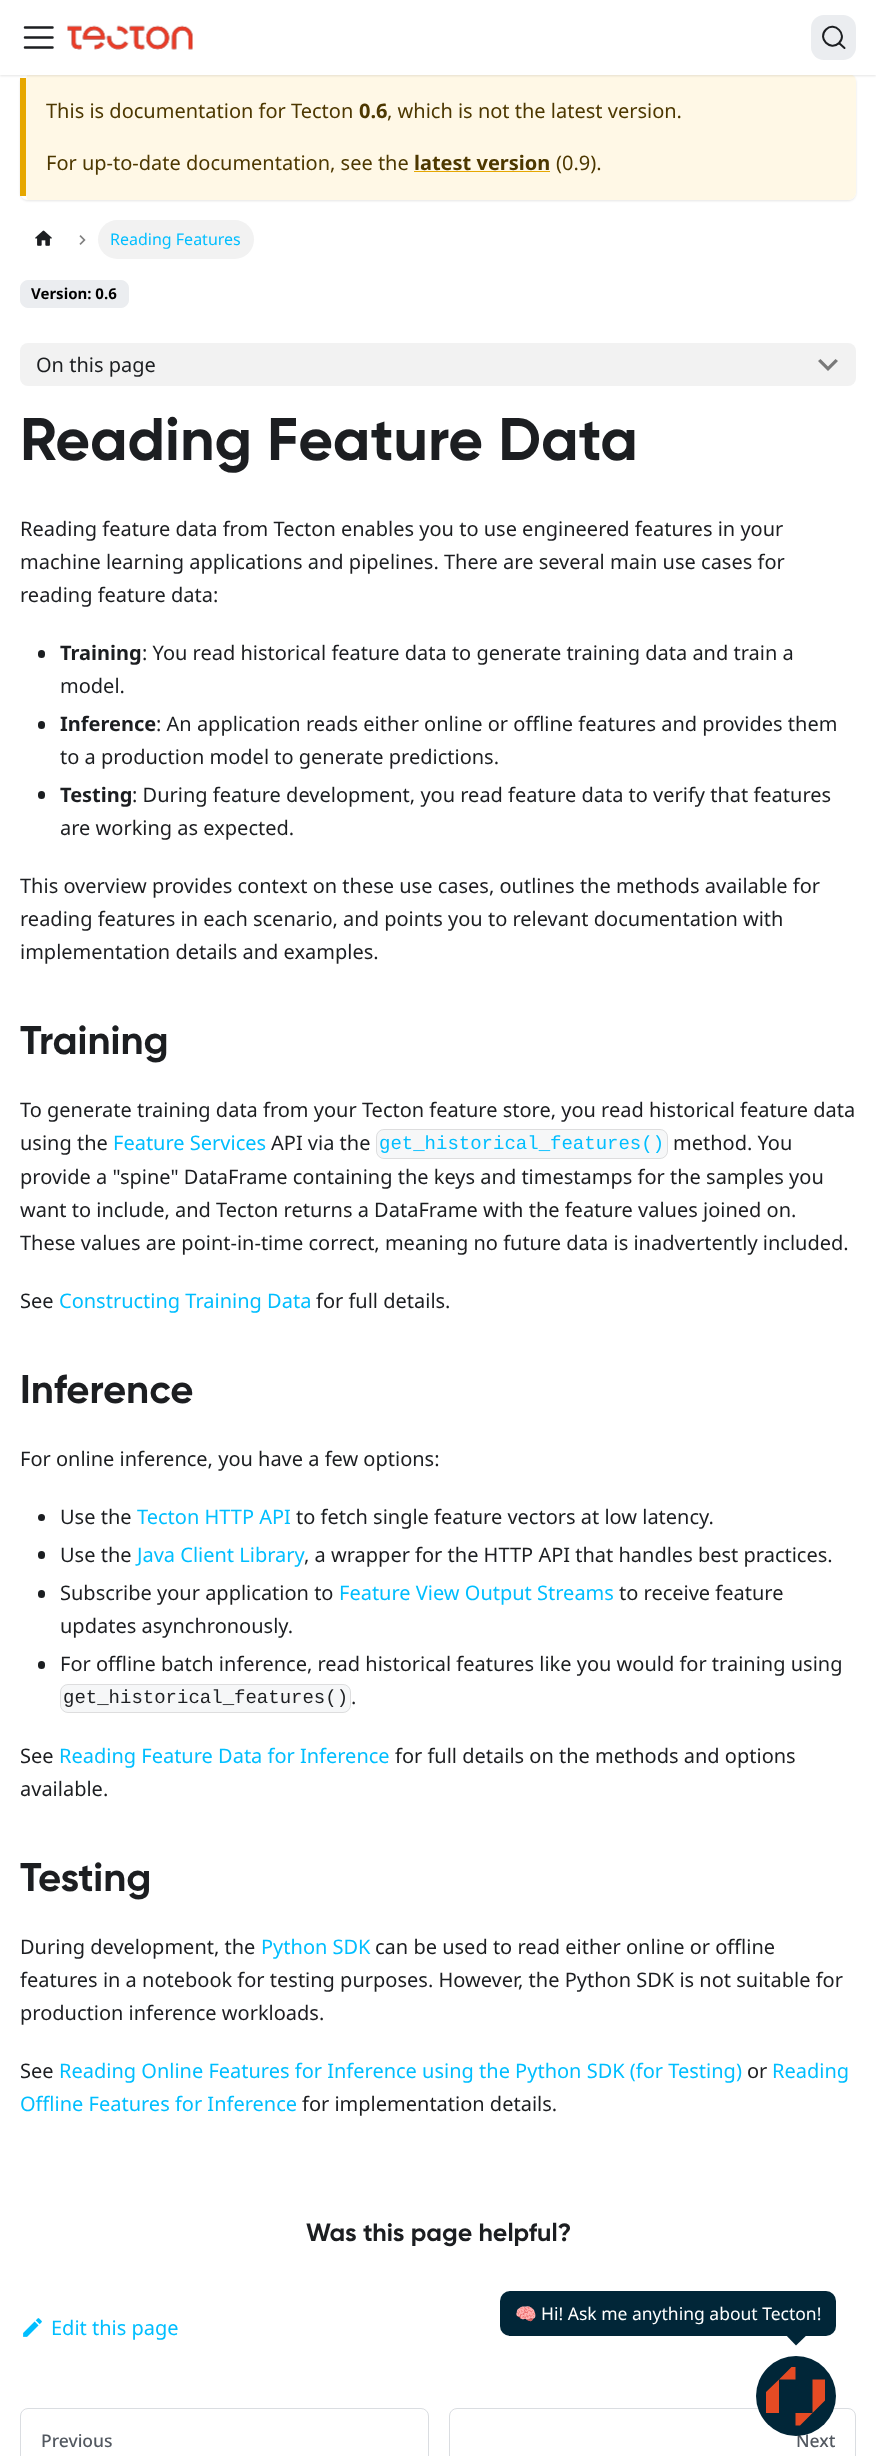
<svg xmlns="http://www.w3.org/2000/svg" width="876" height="2456">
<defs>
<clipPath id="clip1"><path d="M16 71h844v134h-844zm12 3h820c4.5 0 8 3.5 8 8v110c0 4.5-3.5 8-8 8h-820c-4.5 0-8-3.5-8-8v-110c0-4.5 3.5-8 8-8z" clip-rule="evenodd"/></clipPath>
</defs>
<rect width="100%" height="100%" fill="#fff"/>
<g clip-path="url(#clip1)">
<rect x="20" y="75" width="836" height="126" rx="8" fill="#0000001a" filter="blur(1px)"/>
</g>
<path d="M28 74h820c5 0 8 3 8 8v110c0 4-3 8-8 8h-820c-1 0-2-4-2-8v-110c0-5 1-8 2-8z" fill="#fff8e6"/>
<rect x="20" y="78" width="6" height="118" fill="#e6a700"/>
<rect y="1" width="876" height="75" fill="#0000001a" filter="blur(1px)"/>
<rect width="876" height="75" fill="#fff"/>
<path d="M25 27.5h27.5m-27.5 10h27.5m-27.5 10h27.5" fill="none" stroke="#1c1e21" stroke-width="2.5" stroke-linecap="round"/>
<image x="67" y="25" width="126" height="25" href="media/1.png"/>
<rect x="811" y="15" width="45" height="45" rx="13" fill="#ebedf0"/>
<path d="M839 43l5.5 5l-5.5-5c-8.5 8.5-22-4.5-13-13.5c8.5-8.5 22 5 13 13.5z" fill="none" stroke="#1c1e21" stroke-width="2" stroke-linecap="round" stroke-linejoin="round"/>
<text x="46" y="118" style="font-family:Noto Sans;font-size:20px;fill:#4d3800">This is documentation for Tecton</text>
<text x="359" y="118" style="font-family:Noto Sans;font-size:20px;font-weight:bold;fill:#4d3800">0.6</text>
<text x="387" y="118" style="font-family:Noto Sans;font-size:20px;fill:#4d3800">, which is not the latest version.</text>
<text x="46" y="170" style="font-family:Noto Sans;font-size:20px;fill:#4d3800">For up-to-date documentation, see the</text>
<text x="414" y="170" style="font-family:Noto Sans;font-size:20px;font-weight:bold;fill:#4d3800">latest version</text>
<rect x="414" y="171" width="136" height="1" fill="#e6a700"/>
<text x="556" y="170" style="font-family:Noto Sans;font-size:20px;fill:#4d3800">(0.9).</text>
<image x="35" y="230" width="17" height="16" href="media/2.png"/>
<image x="79" y="235" width="7" height="10" href="media/3.png"/>
<rect x="98" y="220" width="156" height="39" rx="19.5" fill="#f2f2f2"/>
<text x="110" y="245" style="font-family:Noto Sans;font-size:16px;fill:#00beff">Reading Features</text>
<rect x="20.5" y="280.5" width="108" height="27" rx="7.5" fill="#ebedf0" stroke="#ebedf0"/>
<text x="31" y="299" style="font-family:Noto Sans;font-size:15px;font-weight:bold;fill:#000">Version: 0.6</text>
<rect x="20" y="343" width="836" height="43" rx="8" fill="#f2f2f2"/>
<text x="36" y="372" style="font-family:Noto Sans;font-size:20px;fill:#1c1e21">On this page</text>
<path d="M835.5 359l-7.5 7.5l-7.5-7.5l-2.5 2l10 10l10-10z" fill="#797979"/>
<text x="20" y="460" style="font-family:Gilroy;font-size:60px;fill:#1c1e21">Reading Feature Data</text>
<text x="20" y="536" style="font-family:Noto Sans;font-size:20px;fill:#1c1e21">Reading feature data from Tecton enables you to use engineered features in your</text>
<text x="20" y="569" style="font-family:Noto Sans;font-size:20px;fill:#1c1e21">machine learning applications and pipelines. There are several main use cases for</text>
<text x="20" y="602" style="font-family:Noto Sans;font-size:20px;fill:#1c1e21">reading feature data:</text>
<rect x="38" y="650" width="7" height="8" rx="3.5" fill="#1c1e21"/>
<text x="60" y="660" style="font-family:Noto Sans;font-size:20px;font-weight:bold;fill:#1c1e21">Training</text>
<text x="142" y="660" style="font-family:Noto Sans;font-size:20px;fill:#1c1e21">: You read historical feature data to generate training data and train a</text>
<text x="60" y="693" style="font-family:Noto Sans;font-size:20px;fill:#1c1e21">model.</text>
<rect x="38" y="721" width="7" height="8" rx="3.5" fill="#1c1e21"/>
<text x="60" y="731" style="font-family:Noto Sans;font-size:20px;font-weight:bold;fill:#1c1e21">Inference</text>
<text x="156" y="731" style="font-family:Noto Sans;font-size:20px;fill:#1c1e21">: An application reads either online or offline features and provides them</text>
<text x="60" y="764" style="font-family:Noto Sans;font-size:20px;fill:#1c1e21">to a production model to generate predictions.</text>
<rect x="38" y="791" width="7" height="8" rx="3.5" fill="#1c1e21"/>
<text x="60" y="802" style="font-family:Noto Sans;font-size:20px;font-weight:bold;fill:#1c1e21">Testing</text>
<text x="132" y="802" style="font-family:Noto Sans;font-size:20px;fill:#1c1e21">: During feature development, you read feature data to verify that features</text>
<text x="60" y="835" style="font-family:Noto Sans;font-size:20px;fill:#1c1e21">are working as expected.</text>
<text x="20" y="893" style="font-family:Noto Sans;font-size:20px;fill:#1c1e21">This overview provides context on these use cases, outlines the methods available for</text>
<text x="20" y="926" style="font-family:Noto Sans;font-size:20px;fill:#1c1e21">reading features in each scenario, and points you to relevant documentation with</text>
<text x="20" y="959" style="font-family:Noto Sans;font-size:20px;fill:#1c1e21">implementation details and examples.</text>
<text x="20" y="1054" style="font-family:Gilroy;font-size:40px;fill:#1c1e21">Training</text>
<text x="20" y="1117" style="font-family:Noto Sans;font-size:20px;fill:#1c1e21">To generate training data from your Tecton feature store, you read historical feature data</text>
<text x="20" y="1150" style="font-family:Noto Sans;font-size:20px;fill:#1c1e21">using the</text>
<text x="113" y="1150" style="font-family:Noto Sans;font-size:20px;fill:#00beff">Feature Services</text>
<text x="271" y="1150" style="font-family:Noto Sans;font-size:20px;fill:#1c1e21">API via the</text>
<rect x="376" y="1129" width="292" height="30" rx="8" fill="#f6f7f8"/>
<rect x="376.5" y="1129.5" width="291" height="29" rx="7.5" fill="none" stroke="#0000001a"/>
<text x="379" y="1149" style="font-family:Liberation Mono;font-size:19px;fill:#00beff">get_historical_features()</text>
<text x="673" y="1150" style="font-family:Noto Sans;font-size:20px;fill:#1c1e21">method. You</text>
<text x="20" y="1184" style="font-family:Noto Sans;font-size:20px;fill:#1c1e21">provide a "spine" DataFrame containing the keys and timestamps for the samples you</text>
<text x="20" y="1217" style="font-family:Noto Sans;font-size:20px;fill:#1c1e21">want to include, and Tecton returns a DataFrame with the feature values joined on.</text>
<text x="20" y="1250" style="font-family:Noto Sans;font-size:20px;fill:#1c1e21">These values are point-in-time correct, meaning no future data is inadvertently included.</text>
<text x="20" y="1308" style="font-family:Noto Sans;font-size:20px;fill:#1c1e21">See</text>
<text x="59" y="1308" style="font-family:Noto Sans;font-size:20px;fill:#00beff">Constructing Training Data</text>
<text x="316" y="1308" style="font-family:Noto Sans;font-size:20px;fill:#1c1e21">for full details.</text>
<text x="20" y="1403" style="font-family:Gilroy;font-size:40px;fill:#1c1e21">Inference</text>
<text x="20" y="1466" style="font-family:Noto Sans;font-size:20px;fill:#1c1e21">For online inference, you have a few options:</text>
<circle cx="41.5" cy="1517.5" r="3.5" fill="#1c1e21"/>
<text x="60" y="1524" style="font-family:Noto Sans;font-size:20px;fill:#1c1e21">Use the</text>
<text x="137" y="1524" style="font-family:Noto Sans;font-size:20px;fill:#00beff">Tecton HTTP API</text>
<text x="296" y="1524" style="font-family:Noto Sans;font-size:20px;fill:#1c1e21">to fetch single feature vectors at low latency.</text>
<rect x="38" y="1551" width="7" height="8" rx="3.5" fill="#1c1e21"/>
<text x="60" y="1562" style="font-family:Noto Sans;font-size:20px;fill:#1c1e21">Use the</text>
<text x="137" y="1562" style="font-family:Noto Sans;font-size:20px;fill:#00beff">Java Client Library</text>
<text x="304" y="1562" style="font-family:Noto Sans;font-size:20px;fill:#1c1e21">, a wrapper for the HTTP API that handles best practices.</text>
<rect x="38" y="1590" width="7" height="8" rx="3.5" fill="#1c1e21"/>
<text x="60" y="1600" style="font-family:Noto Sans;font-size:20px;fill:#1c1e21">Subscribe your application to</text>
<text x="339" y="1600" style="font-family:Noto Sans;font-size:20px;fill:#00beff">Feature View Output Streams</text>
<text x="619" y="1600" style="font-family:Noto Sans;font-size:20px;fill:#1c1e21">to receive feature</text>
<text x="60" y="1633" style="font-family:Noto Sans;font-size:20px;fill:#1c1e21">updates asynchronously.</text>
<rect x="38" y="1661" width="7" height="8" rx="3.5" fill="#1c1e21"/>
<text x="60" y="1671" style="font-family:Noto Sans;font-size:20px;fill:#1c1e21">For offline batch inference, read historical features like you would for training using</text>
<rect x="60" y="1684" width="291" height="29" rx="8" fill="#f6f7f8"/>
<rect x="60.5" y="1684.5" width="290" height="28" rx="7.5" fill="none" stroke="#0000001a"/>
<text x="63" y="1703" style="font-family:Liberation Mono;font-size:19px;fill:#1c1e21">get_historical_features()</text>
<text x="351" y="1704" style="font-family:Noto Sans;font-size:20px;fill:#1c1e21">.</text>
<text x="20" y="1763" style="font-family:Noto Sans;font-size:20px;fill:#1c1e21">See</text>
<text x="59" y="1763" style="font-family:Noto Sans;font-size:20px;fill:#00beff">Reading Feature Data for Inference</text>
<text x="395" y="1763" style="font-family:Noto Sans;font-size:20px;fill:#1c1e21">for full details on the methods and options</text>
<text x="20" y="1796" style="font-family:Noto Sans;font-size:20px;fill:#1c1e21">available.</text>
<text x="20" y="1891" style="font-family:Gilroy;font-size:40px;fill:#1c1e21">Testing</text>
<text x="20" y="1954" style="font-family:Noto Sans;font-size:20px;fill:#1c1e21">During development, the</text>
<text x="261" y="1954" style="font-family:Noto Sans;font-size:20px;fill:#00beff">Python SDK</text>
<text x="375" y="1954" style="font-family:Noto Sans;font-size:20px;fill:#1c1e21">can be used to read either online or offline</text>
<text x="20" y="1987" style="font-family:Noto Sans;font-size:20px;fill:#1c1e21">features in a notebook for testing purposes. However, the Python SDK is not suitable for</text>
<text x="20" y="2020" style="font-family:Noto Sans;font-size:20px;fill:#1c1e21">production inference workloads.</text>
<text x="20" y="2078" style="font-family:Noto Sans;font-size:20px;fill:#1c1e21">See</text>
<text x="59" y="2078" style="font-family:Noto Sans;font-size:20px;fill:#00beff">Reading Online Features for Inference using the Python SDK (for Testing)</text>
<text x="747" y="2078" style="font-family:Noto Sans;font-size:20px;fill:#1c1e21">or</text>
<text x="772" y="2078" style="font-family:Noto Sans;font-size:20px;fill:#00beff">Reading</text>
<text x="20" y="2111" style="font-family:Noto Sans;font-size:20px;fill:#00beff">Offline Features for Inference</text>
<text x="302" y="2111" style="font-family:Noto Sans;font-size:20px;fill:#1c1e21">for implementation details.</text>
<text x="306" y="2241" style="font-family:Gilroy;font-size:25px;fill:#1c1e21">Was this page helpful?</text>
<image x="23" y="2318" width="19" height="19" href="media/4.png"/>
<text x="51" y="2335" style="font-family:Noto Sans;font-size:20px;fill:#00beff">Edit this page</text>
<rect x="20.5" y="2408.5" width="408" height="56" rx="7.5" fill="none" stroke="#dadde1"/>
<text x="41" y="2447" style="font-family:Noto Sans;font-size:17.5px;font-weight:500;fill:#525860">Previous</text>
<rect x="449.5" y="2408.5" width="406" height="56" rx="7.5" fill="none" stroke="#dadde1"/>
<text x="796" y="2447" style="font-family:Noto Sans;font-size:17.5px;font-weight:500;fill:#525860">Next</text>
<path d="M796 2317l14.5 14.5l-14.5 14l-14-14.5z" fill="#012638"/>
<rect x="500" y="2291" width="336" height="45" rx="10" fill="#012638"/>
<text x="515" y="2320" style="font-family:Noto Color Emoji;font-size:17.5px;fill:#fff">🧠</text>
<text x="541" y="2320" style="font-family:Noto Sans;font-size:17.5px;fill:#fff">Hi! Ask me anything about Tecton!</text>
<circle cx="796" cy="2396" r="40" fill="#012638"/>
<path d="M800 2425.5l12.5-12.5h-17v12.5zm25-46h-12.5v33.5l12.5-12.5z" fill="#e54b24"/>
<path d="M791.5 2367l-12.5 12.5h16.5v-12.5zm-25.5 46h13v-33.5l-13 12.5z" fill="#e54b24"/>
</svg>
